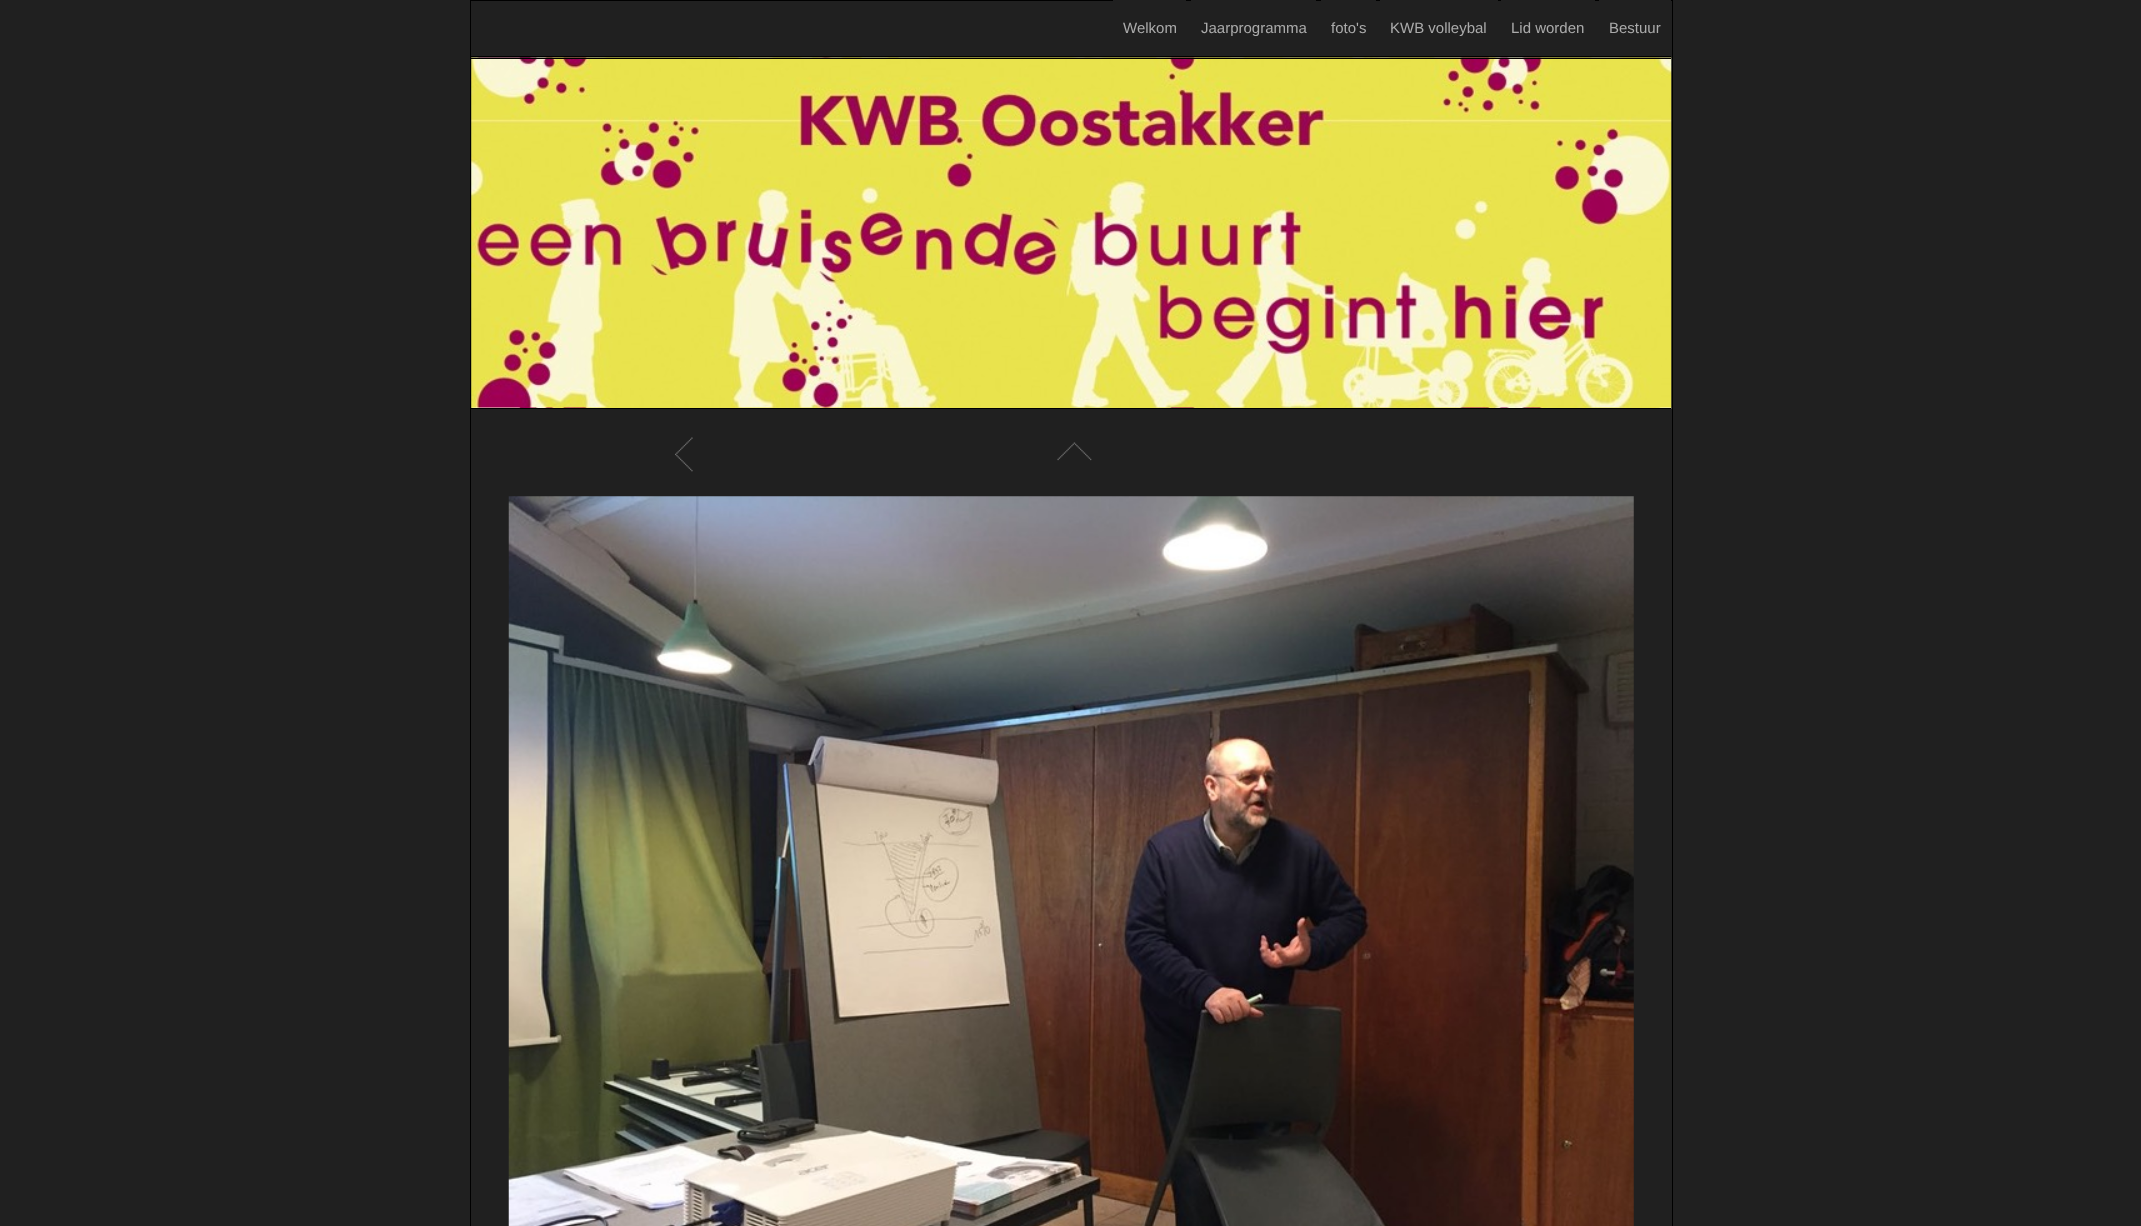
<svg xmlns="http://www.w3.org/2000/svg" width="2141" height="1226">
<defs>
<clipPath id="clip1"><path d="M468 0h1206v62h-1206zm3 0h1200v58h-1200z" clip-rule="evenodd"/></clipPath>
</defs>
<rect width="100%" height="100%" fill="#202020"/>
<rect x="470.5" y="0.5" width="1202" height="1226" fill="none" stroke="#000"/>
<image x="471" y="57" width="1201" height="352" href="media/1.png"/>
<g clip-path="url(#clip1)">
<rect x="471" y="1" width="1200" height="58" fill="#000" filter="blur(0.5px)"/>
</g>
<rect x="471" y="56" width="1200" height="1" fill="#000"/>
<rect x="1113" width="73" height="1" fill="#202020"/>
<text x="1123" y="33" style="font-family:Liberation Sans;font-size:15px;fill:#ababab">Welkom</text>
<rect x="1191" width="125" height="1" fill="#202020"/>
<text x="1201" y="33" style="font-family:Liberation Sans;font-size:15px;fill:#ababab">Jaarprogramma</text>
<rect x="1321" width="55" height="1" fill="#202020"/>
<text x="1331" y="33" style="font-family:Liberation Sans;font-size:15px;fill:#ababab">foto's</text>
<rect x="1380" width="118" height="1" fill="#202020"/>
<text x="1390" y="33" style="font-family:Liberation Sans;font-size:15px;fill:#ababab">KWB volleybal</text>
<rect x="1501" width="94" height="1" fill="#202020"/>
<text x="1511" y="33" style="font-family:Liberation Sans;font-size:15px;fill:#ababab">Lid worden</text>
<rect x="1599" width="72" height="1" fill="#202020"/>
<text x="1609" y="33" style="font-family:Liberation Sans;font-size:15px;fill:#ababab">Bestuur</text>
<rect x="471" y="408" width="1200" height="1" fill="#000"/>
<image x="675" y="437" width="18" height="35" href="media/2.png"/>
<image x="1057" y="442" width="35" height="19" href="media/3.png"/>
<image x="508" y="496" width="1126" height="730" href="media/4.png"/>
</svg>
